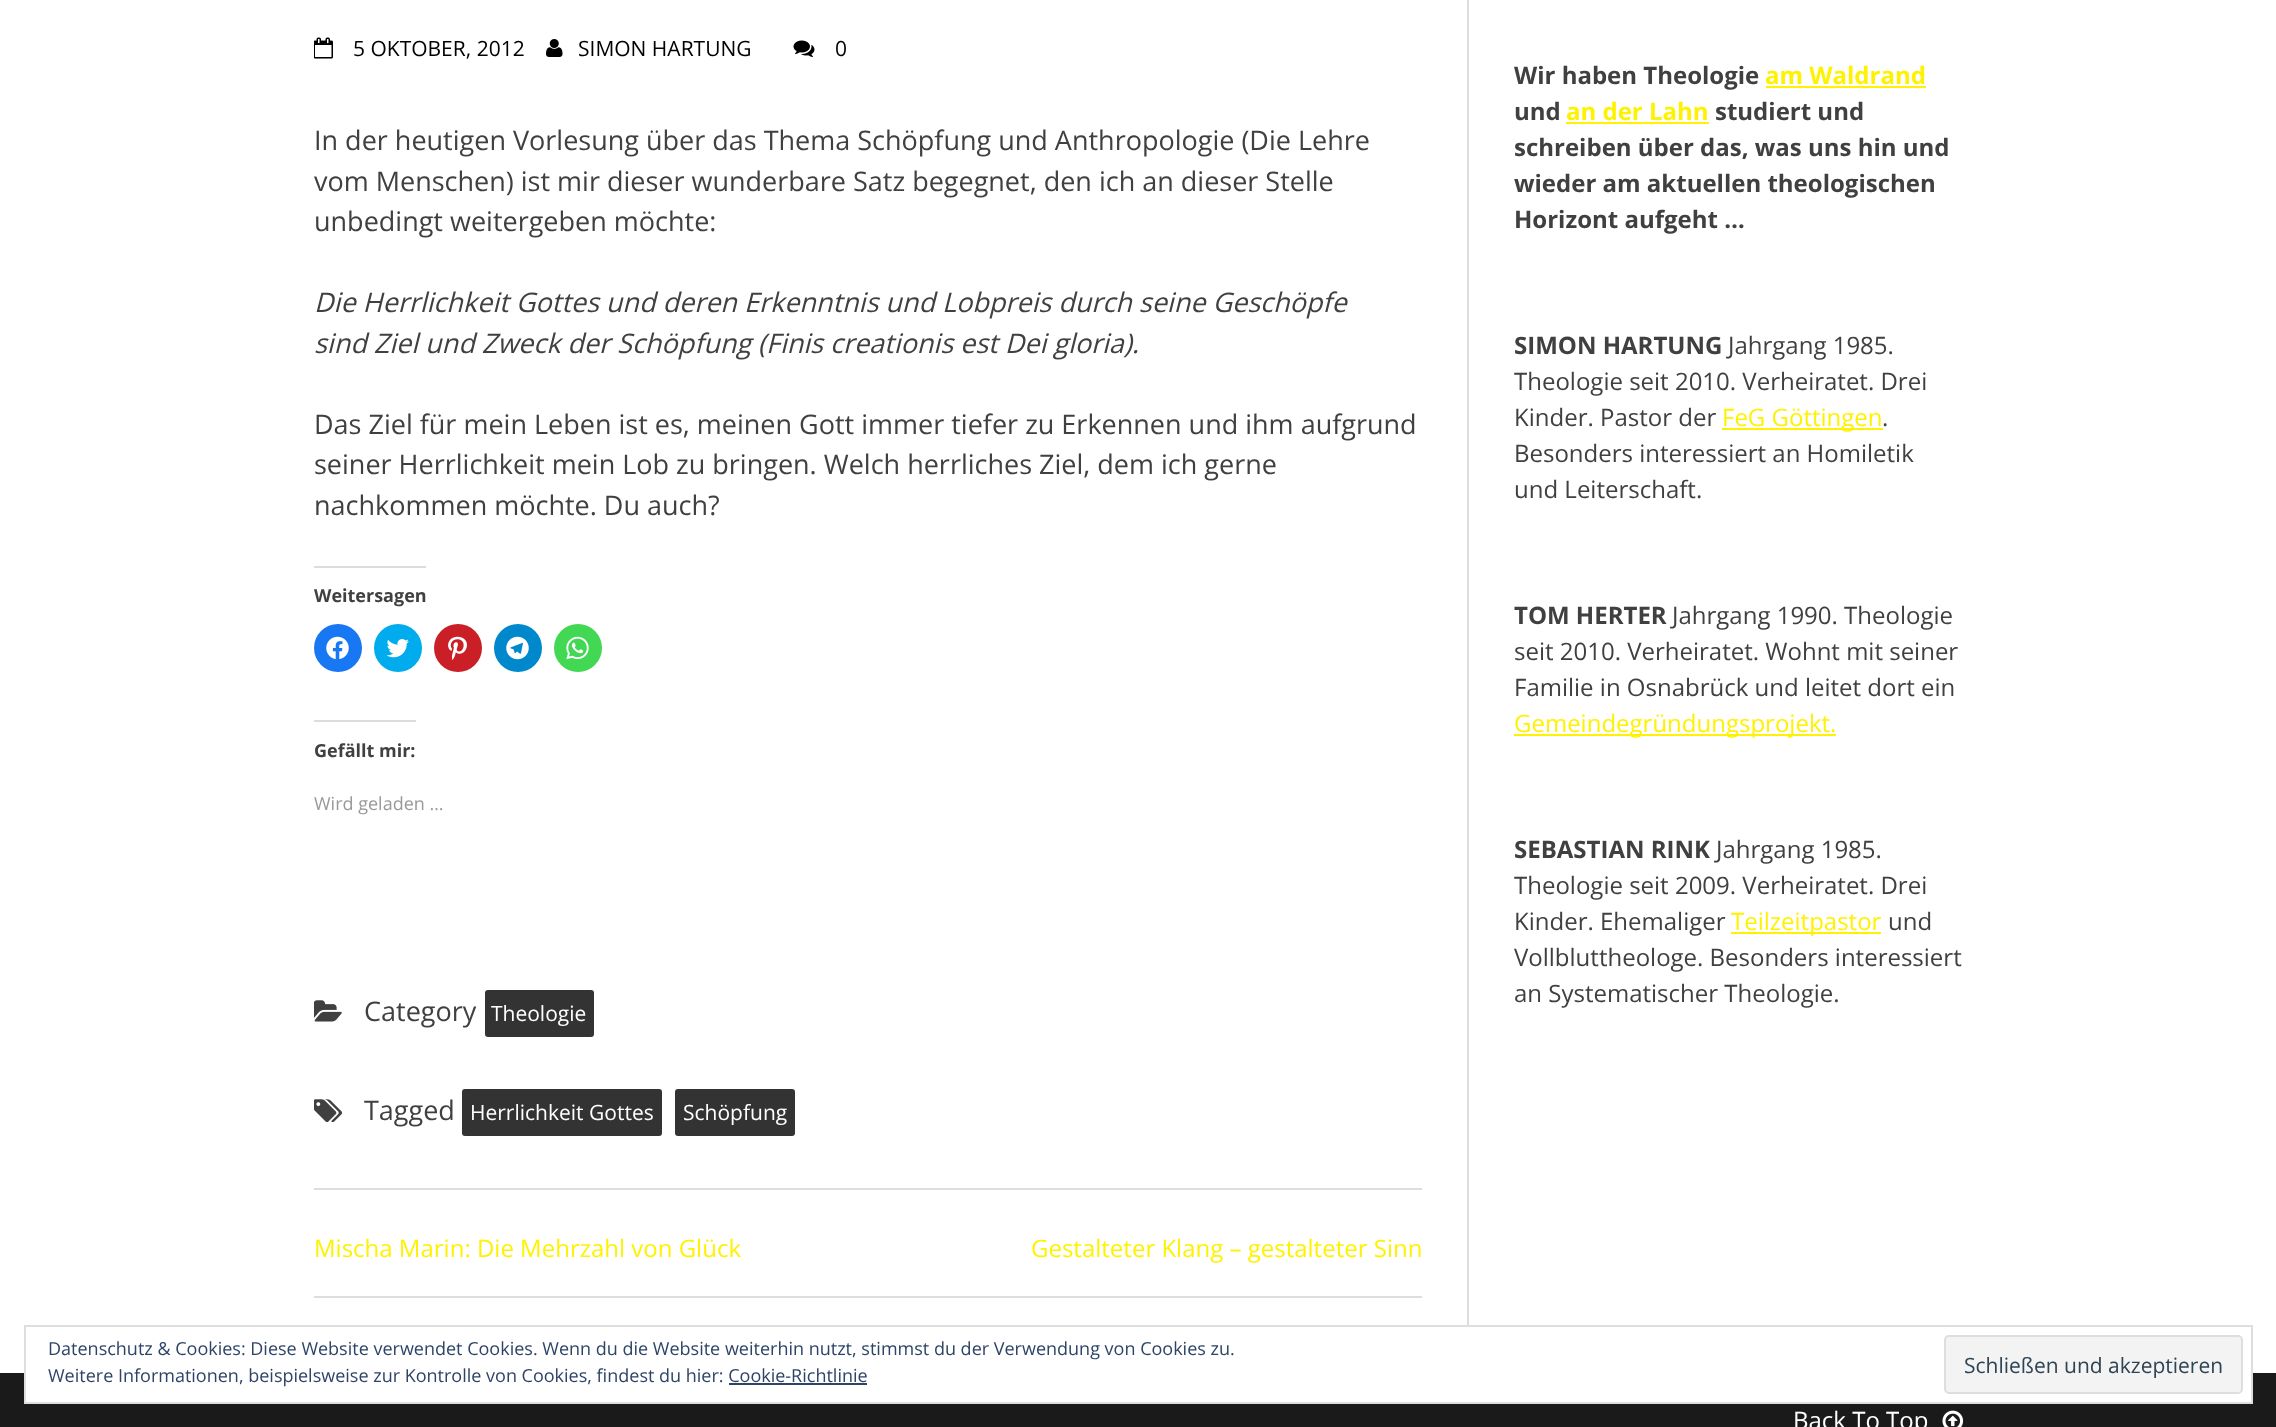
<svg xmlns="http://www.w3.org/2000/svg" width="2276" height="1427">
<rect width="100%" height="100%" fill="#fff"/>
<rect x="1467" width="2" height="1328" fill="#ddd"/>
<rect x="314" y="1188" width="1108" height="2" fill="#ddd"/>
<image x="314" y="37" width="19" height="22" href="media/1.png"/>
<text x="353" y="56" style="font-family:Open Sans;font-size:21px;fill:#000">5 OKTOBER, 2012</text>
<image x="546" y="39" width="17" height="18" href="media/2.png"/>
<text x="578" y="56" style="font-family:Open Sans;font-size:21px;fill:#000">SIMON HARTUNG</text>
<image x="793" y="40" width="22" height="17" href="media/3.png"/>
<text x="835" y="56" style="font-family:Open Sans;font-size:21px;fill:#000">0</text>
<text x="314" y="150" style="font-family:Open Sans;font-size:27px;fill:#404040">In der heutigen Vorlesung über das Thema Schöpfung und Anthropologie (Die Lehre</text>
<text x="314" y="191" style="font-family:Open Sans;font-size:27px;fill:#404040">vom Menschen) ist mir dieser wunderbare Satz begegnet, den ich an dieser Stelle</text>
<text x="314" y="231" style="font-family:Open Sans;font-size:27px;fill:#404040">unbedingt weitergeben möchte:</text>
<text x="314" y="312" style="font-family:Open Sans;font-size:27px;font-style:italic;fill:#404040">Die Herrlichkeit Gottes und deren Erkenntnis und Lobpreis durch seine Geschöpfe</text>
<text x="314" y="353" style="font-family:Open Sans;font-size:27px;font-style:italic;fill:#404040">sind Ziel und Zweck der Schöpfung (Finis creationis est Dei gloria).</text>
<text x="314" y="434" style="font-family:Open Sans;font-size:27px;fill:#404040">Das Ziel für mein Leben ist es, meinen Gott immer tiefer zu Erkennen und ihm aufgrund</text>
<text x="314" y="474" style="font-family:Open Sans;font-size:27px;fill:#404040">seiner Herrlichkeit mein Lob zu bringen. Welch herrliches Ziel, dem ich gerne</text>
<text x="314" y="515" style="font-family:Open Sans;font-size:27px;fill:#404040">nachkommen möchte. Du auch?</text>
<rect x="314" y="566" width="112" height="2" fill="#dcdcde"/>
<text x="314" y="602" style="font-family:Open Sans;font-size:18px;font-weight:bold;fill:#404040">Weitersagen</text>
<circle cx="338" cy="648" r="24" fill="#1877f2"/>
<image x="326" y="636" width="23" height="24" href="media/4.png"/>
<circle cx="398" cy="648" r="24" fill="#00acee"/>
<image x="386" y="639" width="23" height="19" href="media/5.png"/>
<circle cx="458" cy="648" r="24" fill="#ca1f27"/>
<image x="448" y="636" width="19" height="24" href="media/6.png"/>
<circle cx="518" cy="648" r="24" fill="#08c"/>
<image x="506" y="636" width="23" height="24" href="media/7.png"/>
<circle cx="578" cy="648" r="24" fill="#43d854"/>
<image x="566" y="636" width="23" height="24" href="media/8.png"/>
<rect x="314" y="720" width="102" height="2" fill="#dcdcde"/>
<text x="314" y="757" style="font-family:Open Sans;font-size:18px;font-weight:bold;fill:#404040">Gefällt mir:</text>
<text x="314" y="810" style="font-family:Open Sans;font-size:18px;fill:#999">Wird geladen …</text>
<image x="314" y="1000" width="28" height="22" href="media/9.png"/>
<text x="364" y="1021" style="font-family:Open Sans;font-size:27px;fill:#404040">Category</text>
<rect x="485" y="990" width="109" height="47" rx="3" fill="#333"/>
<text x="491" y="1021" style="font-family:Open Sans;font-size:21px;fill:#fff">Theologie</text>
<image x="314" y="1099" width="29" height="24" href="media/10.png"/>
<text x="364" y="1120" style="font-family:Open Sans;font-size:27px;fill:#404040">Tagged</text>
<rect x="462" y="1089" width="200" height="47" rx="3" fill="#333"/>
<text x="470" y="1120" style="font-family:Open Sans;font-size:21px;fill:#fff">Herrlichkeit Gottes</text>
<rect x="675" y="1089" width="120" height="47" rx="3" fill="#333"/>
<text x="683" y="1120" style="font-family:Open Sans;font-size:21px;fill:#fff">Schöpfung</text>
<rect x="314" y="1296" width="1108" height="2" fill="#ddd"/>
<text x="314" y="1257" style="font-family:Open Sans;font-size:24px;fill:#fff200">Mischa Marin: Die Mehrzahl von Glück</text>
<text x="1031" y="1257" style="font-family:Open Sans;font-size:24px;fill:#fff200">Gestalteter Klang – gestalteter Sinn</text>
<text x="1514" y="84" style="font-family:Open Sans;font-size:24px;font-weight:bold;fill:#404040">Wir haben Theologie</text>
<text x="1765" y="84" style="font-family:Open Sans;font-size:24px;font-weight:bold;fill:#fff200">am Waldrand</text>
<rect x="1766" y="86" width="160" height="2" fill="#fff200"/>
<text x="1514" y="120" style="font-family:Open Sans;font-size:24px;font-weight:bold;fill:#404040">und</text>
<text x="1566" y="120" style="font-family:Open Sans;font-size:24px;font-weight:bold;fill:#fff200">an der Lahn</text>
<rect x="1566" y="122" width="143" height="2" fill="#fff200"/>
<text x="1715" y="120" style="font-family:Open Sans;font-size:24px;font-weight:bold;fill:#404040">studiert und</text>
<text x="1514" y="156" style="font-family:Open Sans;font-size:24px;font-weight:bold;fill:#404040">schreiben über das, was uns hin und</text>
<text x="1514" y="192" style="font-family:Open Sans;font-size:24px;font-weight:bold;fill:#404040">wieder am aktuellen theologischen</text>
<text x="1514" y="228" style="font-family:Open Sans;font-size:24px;font-weight:bold;fill:#404040">Horizont aufgeht …</text>
<text x="1514" y="354" style="font-family:Open Sans;font-size:24px;font-weight:bold;fill:#404040">SIMON HARTUNG</text>
<text x="1728" y="354" style="font-family:Open Sans;font-size:24px;fill:#404040">Jahrgang 1985.</text>
<text x="1514" y="390" style="font-family:Open Sans;font-size:24px;fill:#404040">Theologie seit 2010. Verheiratet. Drei</text>
<text x="1514" y="426" style="font-family:Open Sans;font-size:24px;fill:#404040">Kinder. Pastor der</text>
<rect x="1722" y="428" width="161" height="2" fill="#fff200"/>
<text x="1722" y="426" style="font-family:Open Sans;font-size:24px;fill:#fff200">FeG Göttingen</text>
<text x="1882" y="426" style="font-family:Open Sans;font-size:24px;fill:#404040">.</text>
<text x="1514" y="462" style="font-family:Open Sans;font-size:24px;fill:#404040">Besonders interessiert an Homiletik</text>
<text x="1514" y="498" style="font-family:Open Sans;font-size:24px;fill:#404040">und Leiterschaft.</text>
<text x="1514" y="624" style="font-family:Open Sans;font-size:24px;font-weight:bold;fill:#404040">TOM HERTER</text>
<text x="1672" y="624" style="font-family:Open Sans;font-size:24px;fill:#404040">Jahrgang 1990. Theologie</text>
<text x="1514" y="660" style="font-family:Open Sans;font-size:24px;fill:#404040">seit 2010. Verheiratet. Wohnt mit seiner</text>
<text x="1514" y="696" style="font-family:Open Sans;font-size:24px;fill:#404040">Familie in Osnabrück und leitet dort ein</text>
<rect x="1514" y="734" width="322" height="2" fill="#fff200"/>
<text x="1514" y="732" style="font-family:Open Sans;font-size:24px;fill:#fff200">Gemeindegründungsprojekt.</text>
<text x="1514" y="858" style="font-family:Open Sans;font-size:24px;font-weight:bold;fill:#404040">SEBASTIAN RINK</text>
<text x="1716" y="858" style="font-family:Open Sans;font-size:24px;fill:#404040">Jahrgang 1985.</text>
<text x="1514" y="894" style="font-family:Open Sans;font-size:24px;fill:#404040">Theologie seit 2009. Verheiratet. Drei</text>
<text x="1514" y="930" style="font-family:Open Sans;font-size:24px;fill:#404040">Kinder. Ehemaliger</text>
<rect x="1731" y="932" width="150" height="2" fill="#fff200"/>
<text x="1731" y="930" style="font-family:Open Sans;font-size:24px;fill:#fff200">Teilzeitpastor</text>
<text x="1888" y="930" style="font-family:Open Sans;font-size:24px;fill:#404040">und</text>
<text x="1514" y="966" style="font-family:Open Sans;font-size:24px;fill:#404040">Vollbluttheologe. Besonders interessiert</text>
<text x="1514" y="1002" style="font-family:Open Sans;font-size:24px;fill:#404040">an Systematischer Theologie.</text>
<rect y="1373" width="2276" height="54" fill="#1a1a1a"/>
<text x="1793" y="1429" style="font-family:Open Sans;font-size:24px;fill:#fff">Back To Top</text>
<image x="1942" y="1410" width="22" height="17" href="media/11.png"/>
<rect x="25" y="1326" width="2227" height="77" fill="#fff" stroke="#dedede" stroke-width="2"/>
<text x="48" y="1355" style="font-family:Open Sans;font-size:18px;fill:#2e4467">Datenschutz &amp; Cookies: Diese Website verwendet Cookies. Wenn du die Website weiterhin nutzt, stimmst du der Verwendung von Cookies zu.</text>
<text x="48" y="1382" style="font-family:Open Sans;font-size:18px;fill:#2e4467">Weitere Informationen, beispielsweise zur Kontrolle von Cookies, findest du hier: Cookie-Richtlinie</text>
<rect x="1945" y="1336" width="297" height="57" rx="4" fill="#f3f3f3" stroke="#dedede" stroke-width="2"/>
<text x="1964" y="1373" style="font-family:Open Sans;font-size:21px;fill:#2e4453">Schließen und akzeptieren</text>
<rect x="729" y="1383" width="138" height="2" fill="#2e4467"/>
</svg>
